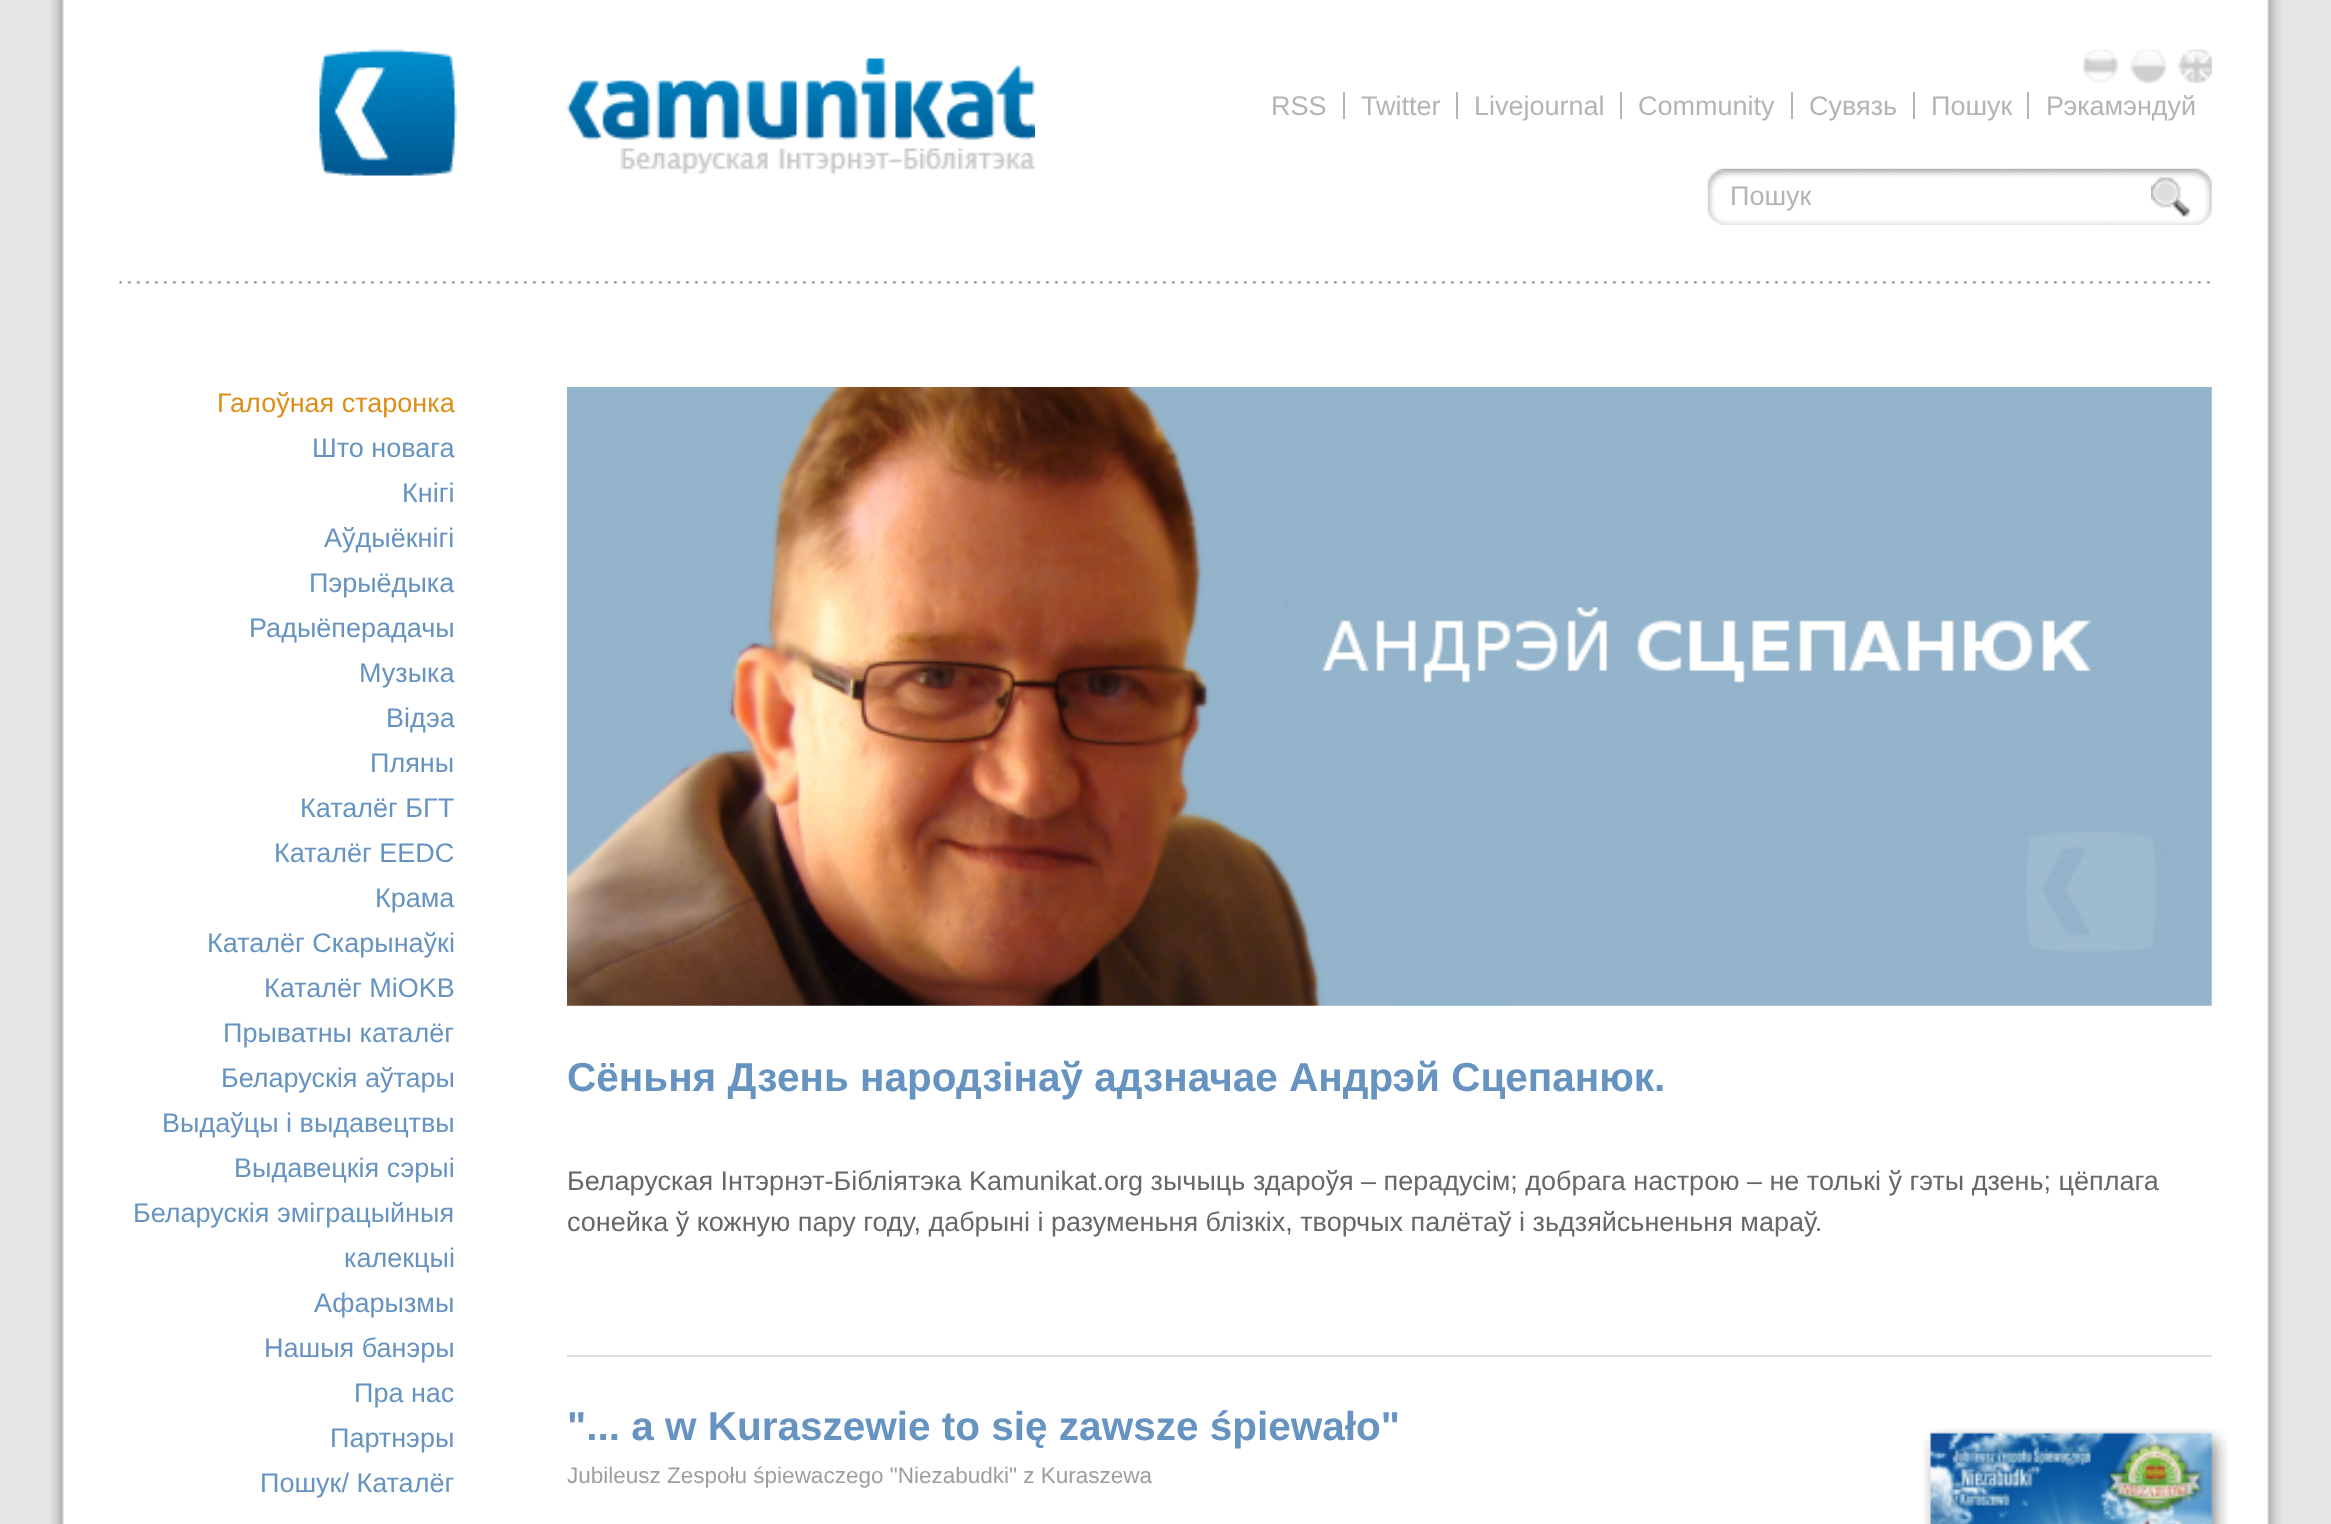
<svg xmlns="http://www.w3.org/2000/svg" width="2331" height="1524">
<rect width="100%" height="100%" fill="#e5e5e5"/>
<image x="51" y="0" width="2230" height="1524" href="media/1.png"/>
<image x="119" y="281" width="2092" height="3" href="media/2.png"/>
<image x="319" y="49" width="716" height="127" href="media/3.png"/>
<image x="2083" y="49" width="36" height="34" href="media/4.png"/>
<image x="2130" y="49" width="37" height="35" href="media/5.png"/>
<image x="2178" y="49" width="34" height="35" href="media/6.png"/>
<rect x="1343" y="92" width="2" height="27" fill="#b5b4b4"/>
<text x="1271" y="115" style="font-family:Liberation Sans;font-size:27px;fill:#b5b4b4">RSS</text>
<rect x="1456" y="92" width="2" height="27" fill="#b5b4b4"/>
<text x="1361" y="115" style="font-family:Liberation Sans;font-size:27px;fill:#b5b4b4">Twitter</text>
<rect x="1620" y="92" width="2" height="27" fill="#b5b4b4"/>
<text x="1474" y="115" style="font-family:Liberation Sans;font-size:27px;fill:#b5b4b4">Livejournal</text>
<rect x="1791" y="92" width="2" height="27" fill="#b5b4b4"/>
<text x="1638" y="115" style="font-family:Liberation Sans;font-size:27px;fill:#b5b4b4">Community</text>
<rect x="1913" y="92" width="2" height="27" fill="#b5b4b4"/>
<text x="1809" y="115" style="font-family:Liberation Sans;font-size:27px;fill:#b5b4b4">Сувязь</text>
<rect x="2027" y="92" width="2" height="27" fill="#b5b4b4"/>
<text x="1931" y="115" style="font-family:Liberation Sans;font-size:27px;fill:#b5b4b4">Пошук</text>
<text x="2046" y="115" style="font-family:Liberation Sans;font-size:27px;fill:#b5b4b4">Рэкамэндуй</text>
<image x="1707" y="168" width="505" height="57" href="media/7.png"/>
<text x="1730" y="205" style="font-family:Liberation Sans;font-size:27px;fill:#b5b4b4">Пошук</text>
<image x="2151" y="177" width="39" height="40" href="media/8.png"/>
<text x="217" y="412" style="font-family:Liberation Sans;font-size:27px;fill:#db8f18">Галоўная старонка</text>
<text x="312" y="457" style="font-family:Liberation Sans;font-size:27px;fill:#6693c0">Што новага</text>
<text x="402" y="502" style="font-family:Liberation Sans;font-size:27px;fill:#6693c0">Кнігі</text>
<text x="324" y="547" style="font-family:Liberation Sans;font-size:27px;fill:#6693c0">Аўдыёкнігі</text>
<text x="309" y="592" style="font-family:Liberation Sans;font-size:27px;fill:#6693c0">Пэрыёдыка</text>
<text x="249" y="637" style="font-family:Liberation Sans;font-size:27px;fill:#6693c0">Радыёперадачы</text>
<text x="359" y="682" style="font-family:Liberation Sans;font-size:27px;fill:#6693c0">Музыка</text>
<text x="386" y="727" style="font-family:Liberation Sans;font-size:27px;fill:#6693c0">Відэа</text>
<text x="370" y="772" style="font-family:Liberation Sans;font-size:27px;fill:#6693c0">Пляны</text>
<text x="300" y="817" style="font-family:Liberation Sans;font-size:27px;fill:#6693c0">Каталёг БГТ</text>
<text x="274" y="862" style="font-family:Liberation Sans;font-size:27px;fill:#6693c0">Каталёг EEDC</text>
<text x="375" y="907" style="font-family:Liberation Sans;font-size:27px;fill:#6693c0">Крама</text>
<text x="207" y="952" style="font-family:Liberation Sans;font-size:27px;fill:#6693c0">Каталёг Скарынаўкі</text>
<text x="264" y="997" style="font-family:Liberation Sans;font-size:27px;fill:#6693c0">Каталёг MiOKB</text>
<text x="223" y="1042" style="font-family:Liberation Sans;font-size:27px;fill:#6693c0">Прыватны каталёг</text>
<text x="221" y="1087" style="font-family:Liberation Sans;font-size:27px;fill:#6693c0">Беларускія аўтары</text>
<text x="162" y="1132" style="font-family:Liberation Sans;font-size:27px;fill:#6693c0">Выдаўцы і выдавецтвы</text>
<text x="234" y="1177" style="font-family:Liberation Sans;font-size:27px;fill:#6693c0">Выдавецкія сэрыі</text>
<text x="133" y="1222" style="font-family:Liberation Sans;font-size:27px;fill:#6693c0">Беларускія эміграцыйныя</text>
<text x="344" y="1267" style="font-family:Liberation Sans;font-size:27px;fill:#6693c0">калекцыі</text>
<text x="314" y="1312" style="font-family:Liberation Sans;font-size:27px;fill:#6693c0">Афарызмы</text>
<text x="264" y="1357" style="font-family:Liberation Sans;font-size:27px;fill:#6693c0">Нашыя банэры</text>
<text x="354" y="1402" style="font-family:Liberation Sans;font-size:27px;fill:#6693c0">Пра нас</text>
<text x="330" y="1447" style="font-family:Liberation Sans;font-size:27px;fill:#6693c0">Партнэры</text>
<text x="260" y="1492" style="font-family:Liberation Sans;font-size:27px;fill:#6693c0">Пошук/ Каталёг</text>
<image x="567" y="387" width="1645" height="619" href="media/9.png"/>
<text x="567" y="1091" style="font-family:Liberation Sans;font-size:40.5px;font-weight:bold;fill:#6693c0">Сёньня Дзень народзінаў адзначае Андрэй Сцепанюк.</text>
<rect x="567" y="1355" width="1645" height="2" fill="#dfdfdf"/>
<text x="567" y="1190" style="font-family:Liberation Sans;font-size:27px;fill:#676767">Беларуская Інтэрнэт-Бібліятэка Kamunikat.org зычыць здароўя – перадусім; добрага настрою – не толькі ў гэты дзень; цёплага</text>
<text x="567" y="1231" style="font-family:Liberation Sans;font-size:27px;fill:#676767">сонейка ў кожную пару году, дабрыні і разуменьня блізкіх, творчых палётаў і зьдзяйсьненьня мараў.</text>
<text x="567" y="1440" style="font-family:Liberation Sans;font-size:40.5px;font-weight:bold;fill:#6693c0">"... a w Kuraszewie to się zawsze śpiewało"</text>
<image x="1923" y="1428" width="306" height="96" href="media/10.png"/>
<text x="567" y="1483" style="font-family:Liberation Sans;font-size:22.5px;fill:#9e9e9e">Jubileusz Zespołu śpiewaczego "Niezabudki" z Kuraszewa</text>
</svg>
